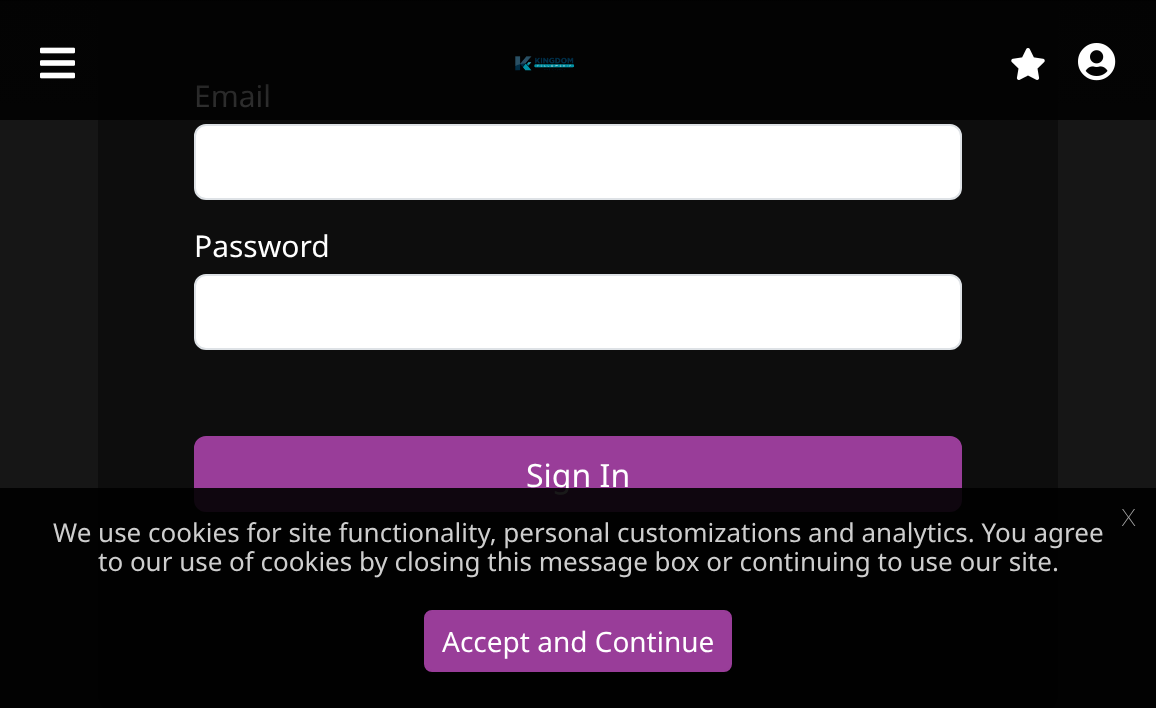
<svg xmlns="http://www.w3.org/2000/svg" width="1156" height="708">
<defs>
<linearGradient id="g1" gradientUnits="userSpaceOnUse" x1="578" y1="0" x2="578" y2="120"><stop offset="0" stop-color="#000" stop-opacity="0.9"/><stop offset="0.01" stop-color="#030303" stop-opacity="0.9"/><stop offset="1" stop-color="#030303" stop-opacity="0"/></linearGradient>
</defs>
<rect width="100%" height="100%" fill="#161616"/>
<rect width="1156" height="120" fill="#040404"/>
<rect x="98" y="-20" width="960" height="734" rx="20" fill="#0d0d0d"/>
<rect x="98" width="960" height="120" fill="#030303"/>
<text x="194" y="107" style="font-family:Noto Sans;font-size:30px;fill:#333">Email</text>
<rect width="1156" height="107" fill="url(#g1)"/>
<image x="40" y="47" width="35" height="32" href="media/1.png"/>
<image x="515" y="56" width="60" height="15" href="media/2.png"/>
<image x="1011" y="48" width="34" height="32" href="media/3.png"/>
<image x="1078" y="43" width="38" height="38" href="media/4.png"/>
<rect x="195" y="125" width="766" height="74" rx="11" fill="#fff" stroke="#dee2e6" stroke-width="2"/>
<text x="194" y="257" style="font-family:Noto Sans;font-size:30px;fill:#fff">Password</text>
<rect x="195" y="275" width="766" height="74" rx="11" fill="#fff" stroke="#dee2e6" stroke-width="2"/>
<rect x="195" y="437" width="766" height="74" rx="11" fill="#993d99" stroke="#993d99" stroke-width="2"/>
<text x="526" y="487" style="font-family:Noto Sans;font-size:32px;fill:#fff">Sign In</text>
<rect y="488" width="1156" height="220" fill="#000000e6"/>
<text x="1121" y="526" style="font-family:Noto Sans;font-size:32px;font-weight:100;fill:#a2a2a2">x</text>
<text x="53" y="542" style="font-family:Noto Sans;font-size:26px;fill:#cecece">We use cookies for site functionality, personal customizations and analytics. You agree</text>
<text x="98" y="571" style="font-family:Noto Sans;font-size:26px;fill:#cecece">to our use of cookies by closing this message box or continuing to use our site.</text>
<rect x="425" y="611" width="306" height="60" rx="7" fill="#993d99" stroke="#993d99" stroke-width="2"/>
<text x="442" y="652" style="font-family:Noto Sans;font-size:28px;fill:#fff">Accept and Continue</text>
</svg>
